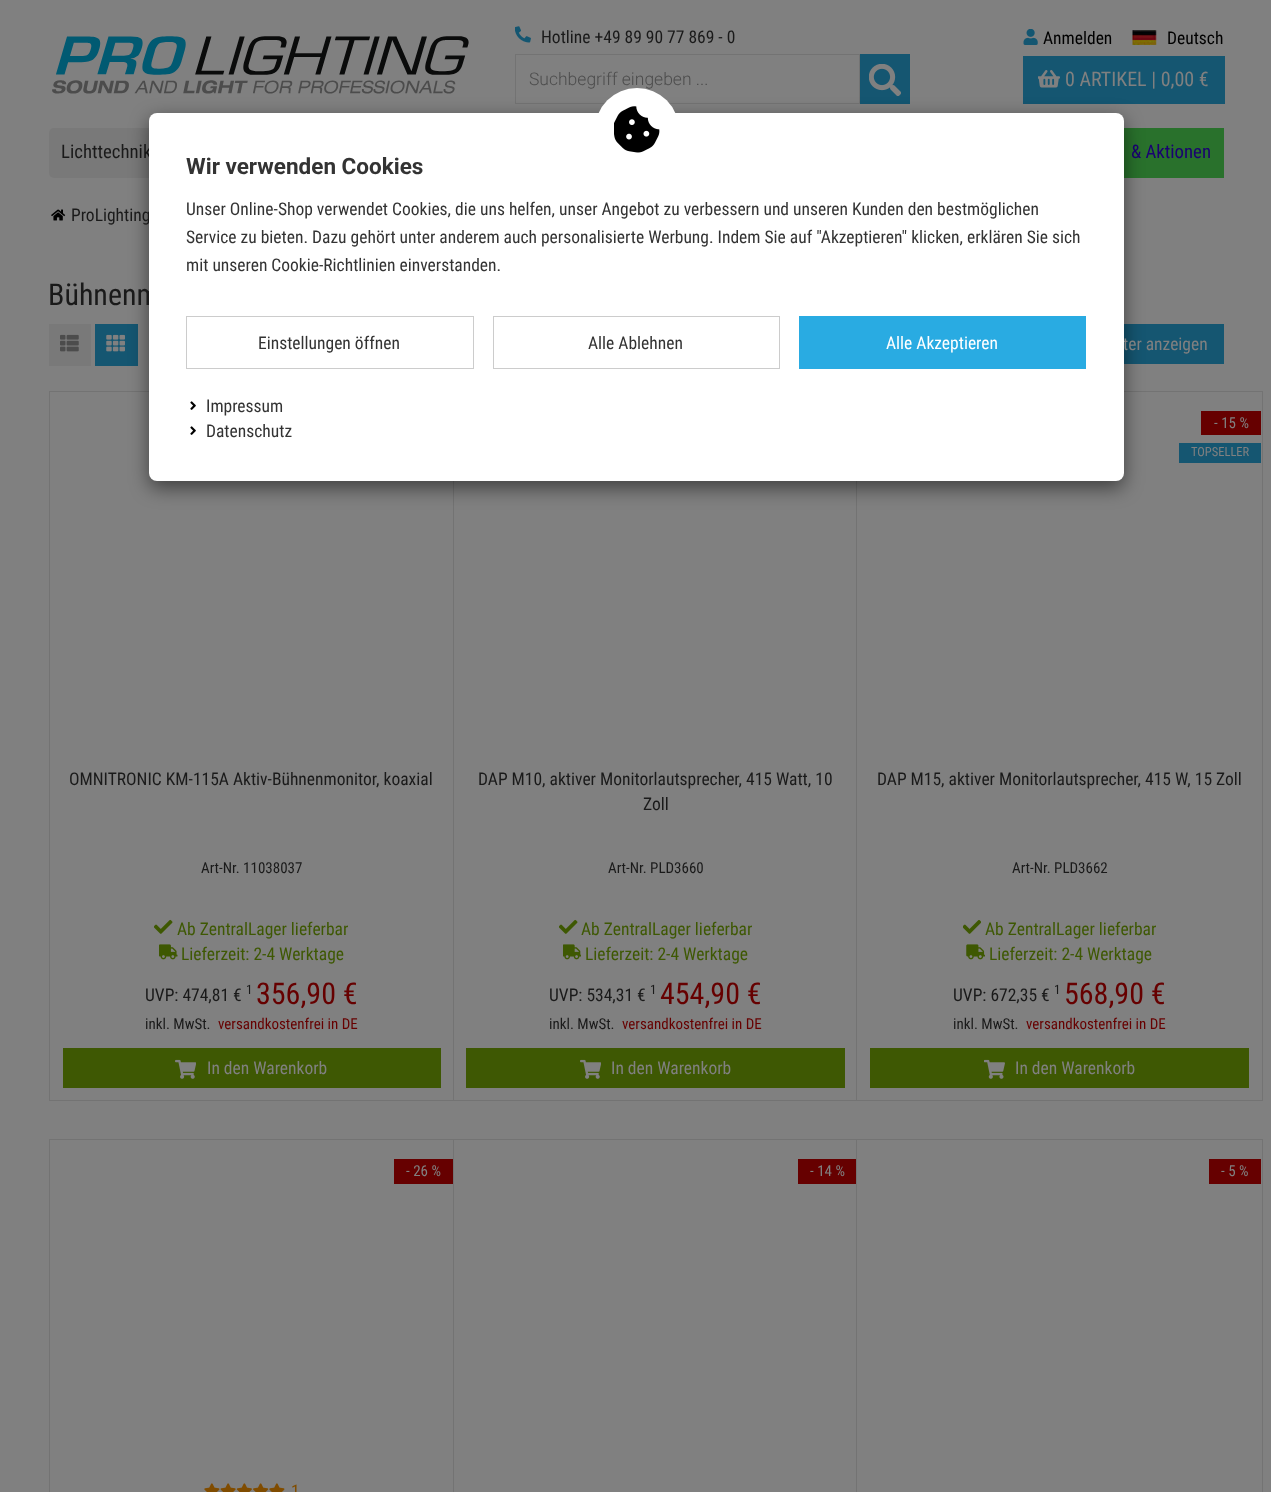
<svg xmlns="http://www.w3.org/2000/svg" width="1271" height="1492">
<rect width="100%" height="100%" fill="#808080"/>
<image x="52" y="36" width="417" height="58" href="media/1.png"/>
<image x="515" y="26" width="16" height="17" href="media/2.png"/>
<text x="541" y="43" style="font-family:Roboto Condensed;font-size:17.5px;fill:#1a1a1a">Hotline +49 89 90 77 869 - 0</text>
<rect x="515.5" y="54.5" width="344" height="49" fill="none" stroke="#737373"/>
<text x="529" y="85" style="font-family:Roboto;font-size:17.5px;font-weight:300;fill:#4d4d4d">Suchbegriff eingeben ...</text>
<rect x="860" y="54" width="50" height="50" fill="#155671"/>
<image x="869" y="64" width="32" height="32" href="media/3.png"/>
<image x="1023" y="29" width="15" height="16" href="media/4.png"/>
<text x="1043" y="44" style="font-family:Roboto Condensed;font-size:17.5px;fill:#000">Anmelden</text>
<image x="1132" y="30" width="25" height="15" href="media/5.png"/>
<text x="1167" y="44" style="font-family:Roboto Condensed;font-size:17.5px;fill:#000">Deutsch</text>
<rect x="1023" y="56" width="202" height="48" fill="#155671"/>
<image x="1038" y="70" width="22" height="18" href="media/6.png"/>
<text x="1065" y="86" style="font-family:Roboto Condensed;font-size:20px;fill:#808080">0 ARTIKEL | 0,00 €</text>
<rect x="49" y="128" width="1175" height="50" rx="5" fill="#797979"/>
<text x="61" y="158" style="font-family:Roboto Condensed;font-size:18.75px;fill:#1a1a1a">Lichttechnik</text>
<rect x="1124" y="128" width="100" height="50" fill="#29712c"/>
<text x="1131" y="158" style="font-family:Roboto Condensed;font-size:18.75px;fill:#1a0172">&amp; Aktionen</text>
<rect x="95" y="324" width="43" height="42" fill="#155671"/>
<image x="106" y="334" width="19" height="18" href="media/11.png"/>
<rect x="1124" y="324" width="100" height="40" fill="#155671"/>
<rect x="49.5" y="391.5" width="405" height="709" fill="none" stroke="#737373"/>
<rect x="454" y="481" width="1" height="619" fill="#808080"/>
<rect x="453.5" y="391.5" width="405" height="709" fill="none" stroke="#737373"/>
<rect x="858" y="392" width="1" height="708" fill="#808080"/>
<rect x="856.5" y="391.5" width="406" height="709" fill="none" stroke="#737373"/>
<rect x="149" y="119" width="975" height="369" rx="8" fill="#00000080" filter="blur(9.5px)"/>
<text x="71" y="221" style="font-family:Roboto Condensed;font-size:17.5px;fill:#1a1a1a">ProLighting</text>
<text x="48" y="305" style="font-family:Roboto Condensed;font-size:30px;fill:#1a1a1a">Bühnenm</text>
<text x="1123" y="350" style="font-family:Roboto Condensed;font-size:17.5px;fill:#808080">ter anzeigen</text>
<rect x="149" y="113" width="975" height="368" rx="8" fill="#fff"/>
<rect x="595" y="88" width="84" height="90" rx="42" fill="#fff"/>
<image x="614" y="106" width="46" height="47" href="media/7.png"/>
<text x="186" y="174" style="font-family:Roboto;font-size:22.5px;font-weight:bold;fill:#333">Wir verwenden Cookies</text>
<text x="186" y="215" style="font-family:Roboto Condensed;font-size:17.5px;fill:#333">Unser Online-Shop verwendet Cookies, die uns helfen, unser Angebot zu verbessern und unseren Kunden den bestmöglichen</text>
<text x="186" y="243" style="font-family:Roboto Condensed;font-size:17.5px;fill:#333">Service zu bieten. Dazu gehört unter anderem auch personalisierte Werbung. Indem Sie auf "Akzeptieren" klicken, erklären Sie sich</text>
<text x="186" y="271" style="font-family:Roboto Condensed;font-size:17.5px;fill:#333">mit unseren Cookie-Richtlinien einverstanden.</text>
<rect x="186.5" y="316.5" width="287" height="52" fill="none" stroke="#ccc"/>
<text x="258" y="349" style="font-family:Roboto Condensed;font-size:17.5px;fill:#333">Einstellungen öffnen</text>
<rect x="493.5" y="316.5" width="286" height="52" fill="none" stroke="#ccc"/>
<text x="588" y="349" style="font-family:Roboto Condensed;font-size:17.5px;fill:#333">Alle Ablehnen</text>
<rect x="799" y="316" width="287" height="53" fill="#29abe2"/>
<text x="886" y="349" style="font-family:Roboto Condensed;font-size:17.5px;fill:#fff">Alle Akzeptieren</text>
<image x="190" y="401" width="6" height="9" href="media/8.png"/>
<text x="206" y="412" style="font-family:Roboto Condensed;font-size:17.5px;fill:#333">Impressum</text>
<image x="190" y="426" width="6" height="9" href="media/8.png"/>
<text x="206" y="437" style="font-family:Roboto Condensed;font-size:17.5px;fill:#333">Datenschutz</text>
<image x="51" y="209" width="15" height="12" href="media/9.png"/>
<rect x="49" y="324" width="42" height="42" fill="#797979"/>
<image x="60" y="334" width="19" height="18" href="media/10.png"/>
<text x="69" y="785" style="font-family:Roboto Condensed;font-size:17.5px;fill:#1a1a1a">OMNITRONIC KM-115A Aktiv-Bühnenmonitor, koaxial</text>
<text x="201" y="873" style="font-family:Roboto Condensed;font-size:15px;fill:#1a1a1a">Art-Nr. 11038037</text>
<image x="154" y="919" width="19" height="15" href="media/12.png"/>
<text x="177" y="935" style="font-family:Roboto Condensed;font-size:17.5px;fill:#3e5803">Ab ZentralLager lieferbar</text>
<image x="159" y="944" width="19" height="16" href="media/13.png"/>
<text x="181" y="960" style="font-family:Roboto Condensed;font-size:17.5px;fill:#3e5803">Lieferzeit: 2-4 Werktage</text>
<text x="145" y="1001" style="font-family:Roboto Condensed;font-size:17.5px;fill:#1a1a1a">UVP: 474,81 €</text>
<text x="246" y="994" style="font-family:Roboto Condensed;font-size:13px;fill:#1a1a1a">1</text>
<text x="256" y="1004" style="font-family:Roboto Condensed;font-size:30px;fill:#600">356,90 €</text>
<text x="145" y="1029" style="font-family:Roboto Condensed;font-size:15px;fill:#1a1a1a">inkl. MwSt.</text>
<text x="218" y="1029" style="font-family:Roboto Condensed;font-size:15px;fill:#600">versandkostenfrei in DE</text>
<rect x="63" y="1048" width="378" height="40" fill="#3e5803"/>
<image x="175" y="1059" width="21" height="20" href="media/14.png"/>
<text x="207" y="1074" style="font-family:Roboto Condensed;font-size:17.5px;fill:#808080">In den Warenkorb</text>
<text x="478" y="785" style="font-family:Roboto Condensed;font-size:17.5px;fill:#1a1a1a">DAP M10, aktiver Monitorlautsprecher, 415 Watt, 10</text>
<text x="643" y="810" style="font-family:Roboto Condensed;font-size:17.5px;fill:#1a1a1a">Zoll</text>
<text x="608" y="873" style="font-family:Roboto Condensed;font-size:15px;fill:#1a1a1a">Art-Nr. PLD3660</text>
<image x="559" y="919" width="19" height="15" href="media/12.png"/>
<text x="581" y="935" style="font-family:Roboto Condensed;font-size:17.5px;fill:#3e5803">Ab ZentralLager lieferbar</text>
<image x="563" y="944" width="18" height="16" href="media/15.png"/>
<text x="585" y="960" style="font-family:Roboto Condensed;font-size:17.5px;fill:#3e5803">Lieferzeit: 2-4 Werktage</text>
<text x="549" y="1001" style="font-family:Roboto Condensed;font-size:17.5px;fill:#1a1a1a">UVP: 534,31 €</text>
<text x="650" y="994" style="font-family:Roboto Condensed;font-size:13px;fill:#1a1a1a">1</text>
<text x="660" y="1004" style="font-family:Roboto Condensed;font-size:30px;fill:#600">454,90 €</text>
<text x="549" y="1029" style="font-family:Roboto Condensed;font-size:15px;fill:#1a1a1a">inkl. MwSt.</text>
<text x="622" y="1029" style="font-family:Roboto Condensed;font-size:15px;fill:#600">versandkostenfrei in DE</text>
<rect x="466" y="1048" width="379" height="40" fill="#3e5803"/>
<image x="580" y="1059" width="21" height="20" href="media/14.png"/>
<text x="611" y="1074" style="font-family:Roboto Condensed;font-size:17.5px;fill:#808080">In den Warenkorb</text>
<rect x="1201" y="411" width="60" height="24" fill="#600"/>
<text x="1214" y="428" style="font-family:Roboto Condensed;font-size:15px;fill:#808080">- 15 %</text>
<rect x="1179" y="443" width="82" height="20" fill="#155671"/>
<text x="1191" y="456" style="font-family:Roboto Condensed;font-size:12.5px;fill:#808080">TOPSELLER</text>
<image x="963" y="920" width="18" height="14" href="media/16.png"/>
<text x="985" y="935" style="font-family:Roboto Condensed;font-size:17.5px;fill:#3e5803">Ab ZentralLager lieferbar</text>
<image x="966" y="944" width="19" height="16" href="media/17.png"/>
<text x="989" y="960" style="font-family:Roboto Condensed;font-size:17.5px;fill:#3e5803">Lieferzeit: 2-4 Werktage</text>
<text x="953" y="1001" style="font-family:Roboto Condensed;font-size:17.5px;fill:#1a1a1a">UVP: 672,35 €</text>
<text x="1054" y="994" style="font-family:Roboto Condensed;font-size:13px;fill:#1a1a1a">1</text>
<text x="1064" y="1004" style="font-family:Roboto Condensed;font-size:30px;fill:#600">568,90 €</text>
<text x="953" y="1029" style="font-family:Roboto Condensed;font-size:15px;fill:#1a1a1a">inkl. MwSt.</text>
<text x="1026" y="1029" style="font-family:Roboto Condensed;font-size:15px;fill:#600">versandkostenfrei in DE</text>
<rect x="870" y="1048" width="379" height="40" fill="#3e5803"/>
<image x="984" y="1059" width="21" height="20" href="media/18.png"/>
<text x="1015" y="1074" style="font-family:Roboto Condensed;font-size:17.5px;fill:#808080">In den Warenkorb</text>
<text x="877" y="785" style="font-family:Roboto Condensed;font-size:17.5px;fill:#1a1a1a">DAP M15, aktiver Monitorlautsprecher, 415 W, 15 Zoll</text>
<text x="1012" y="873" style="font-family:Roboto Condensed;font-size:15px;fill:#1a1a1a">Art-Nr. PLD3662</text>
<rect x="49.5" y="1139.5" width="405" height="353" fill="none" stroke="#737373"/>
<rect x="394" y="1159" width="59" height="25" fill="#600"/>
<text x="406" y="1176" style="font-family:Roboto Condensed;font-size:15px;fill:#808080">- 26 %</text>
<image x="204" y="1483" width="16" height="9" href="media/19.png"/>
<image x="220" y="1483" width="16" height="9" href="media/20.png"/>
<image x="236" y="1483" width="16" height="9" href="media/21.png"/>
<image x="253" y="1483" width="16" height="9" href="media/22.png"/>
<image x="269" y="1483" width="16" height="9" href="media/19.png"/>
<text x="291" y="1497" style="font-family:Roboto Condensed;font-size:17.5px;fill:#804d00">1</text>
<rect x="454" y="1140" width="1" height="352" fill="#808080"/>
<rect x="453.5" y="1139.5" width="405" height="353" fill="none" stroke="#737373"/>
<rect x="798" y="1159" width="58" height="25" fill="#600"/>
<text x="810" y="1176" style="font-family:Roboto Condensed;font-size:15px;fill:#808080">- 14 %</text>
<rect x="858" y="1140" width="1" height="352" fill="#808080"/>
<rect x="856.5" y="1139.5" width="406" height="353" fill="none" stroke="#737373"/>
<rect x="1209" y="1159" width="52" height="25" fill="#600"/>
<text x="1221" y="1176" style="font-family:Roboto Condensed;font-size:15px;fill:#808080">- 5 %</text>
</svg>
